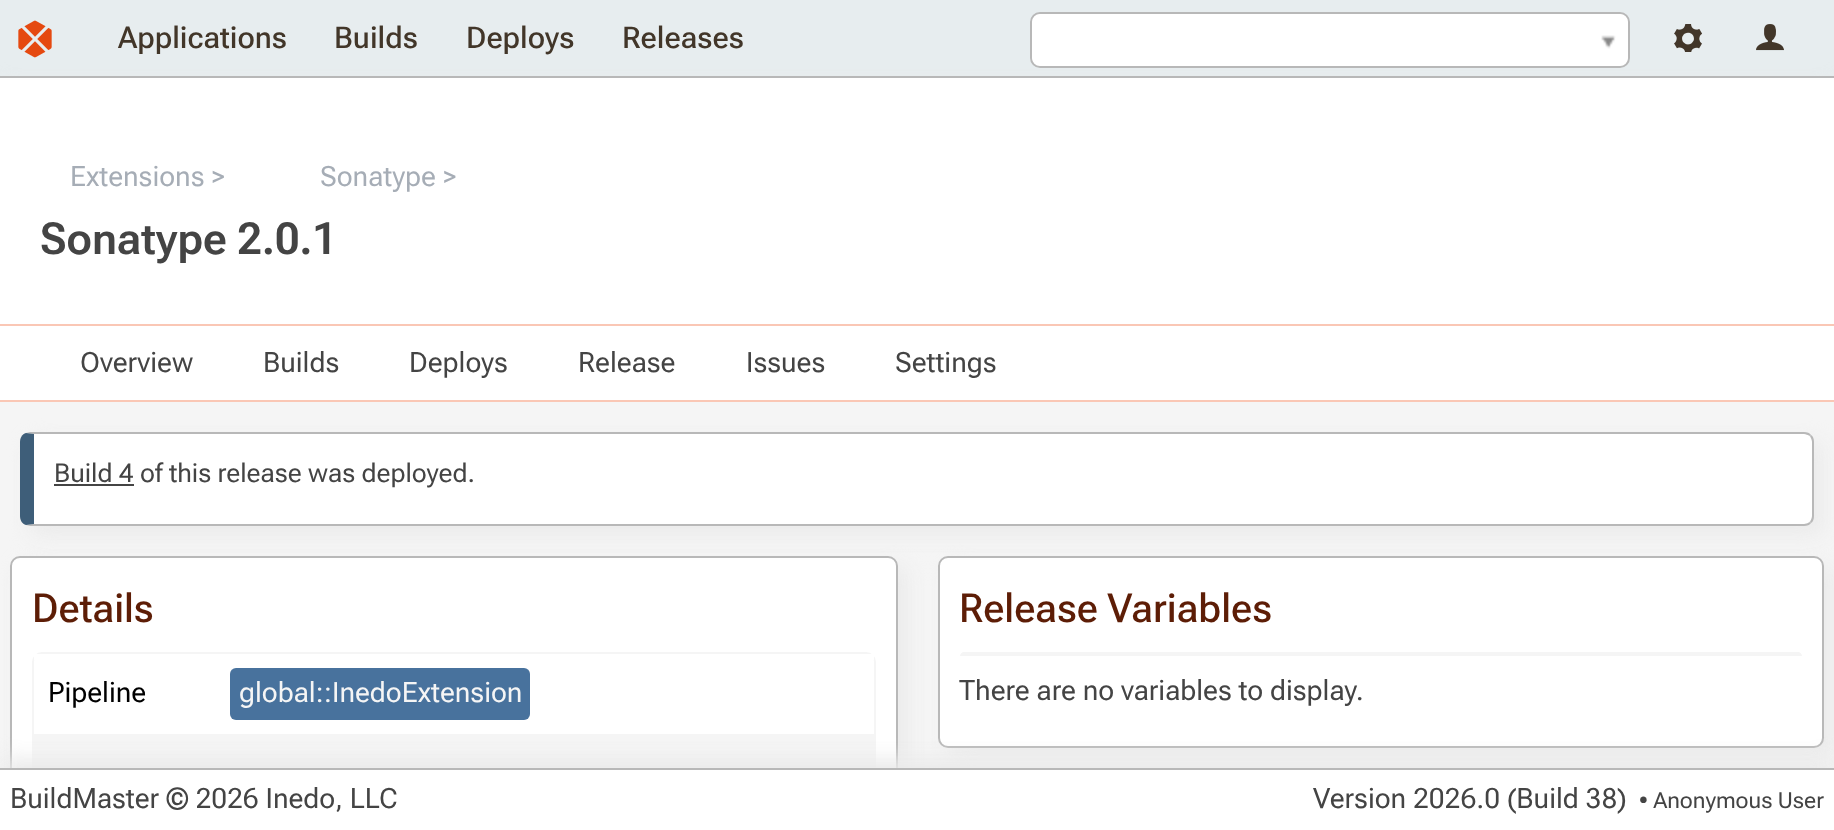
<svg xmlns="http://www.w3.org/2000/svg" width="1834" height="830">
<rect width="100%" height="100%" fill="#f5f5f5"/>
<rect width="1834" height="76" fill="#e7edef"/>
<rect y="86" width="1834" height="250" fill="#ebebeb" filter="blur(10px)"/>
<image x="18" y="20" width="34" height="38" href="media/1.png"/>
<text x="118" y="48" style="font-family:Roboto Flex;font-size:30px;font-weight:500;fill:#423629">Applications</text>
<text x="334" y="48" style="font-family:Roboto Flex;font-size:30px;font-weight:500;fill:#423629">Builds</text>
<text x="466" y="48" style="font-family:Roboto Flex;font-size:30px;font-weight:500;fill:#423629">Deploys</text>
<text x="622" y="48" style="font-family:Roboto Flex;font-size:30px;font-weight:500;fill:#423629">Releases</text>
<rect x="1031" y="13" width="598" height="54" rx="9" fill="#fff" stroke="#b8b8b8" stroke-width="2"/>
<rect x="1032" y="14" width="596" height="52" rx="10" fill="#fff"/>
<image x="1601" y="35" width="15" height="14" href="media/2.png"/>
<image x="1674" y="24" width="28" height="28" href="media/3.png"/>
<image x="1756" y="24" width="28" height="27" href="media/4.png"/>
<rect y="78" width="1834" height="246" fill="#fff"/>
<rect y="76" width="1834" height="2" fill="#b8b8b8"/>
<rect y="324" width="1834" height="2" fill="#fac7b5"/>
<text x="70" y="186" style="font-family:Roboto Flex;font-size:28px;fill:#a6adb6">Extensions &gt;</text>
<text x="320" y="186" style="font-family:Roboto Flex;font-size:28px;fill:#a6adb6">Sonatype &gt;</text>
<text x="40" y="254" style="font-family:Roboto Flex;font-size:44px;font-weight:600;fill:#444">Sonatype 2.0.1</text>
<rect y="326" width="1834" height="74" fill="#fff"/>
<rect y="400" width="1834" height="2" fill="#fac7b5"/>
<text x="80" y="372" style="font-family:Roboto Flex;font-size:28px;fill:#444">Overview</text>
<text x="263" y="372" style="font-family:Roboto Flex;font-size:28px;fill:#444">Builds</text>
<text x="409" y="372" style="font-family:Roboto Flex;font-size:28px;fill:#444">Deploys</text>
<text x="578" y="372" style="font-family:Roboto Flex;font-size:28px;fill:#444">Release</text>
<text x="746" y="372" style="font-family:Roboto Flex;font-size:28px;fill:#444">Issues</text>
<text x="895" y="372" style="font-family:Roboto Flex;font-size:28px;fill:#444">Settings</text>
<rect x="30" y="442" width="1794" height="94" rx="10" fill="#ebebeb" filter="blur(10px)"/>
<path d="M34 434h1770c4 0 8 4 8 8v74c0 4-4 8-8 8h-1770z" fill="#fff"/>
<path d="M30 432l-4 1l8 1h1770c2 0 4 1 6 2l1-1c-1-2-4-3-7-3z" fill="#b8b8b8"/>
<path d="M1814 516v-74c0-3-1-6-3-7l-1 1c1 2 2 4 2 6v74c0 2-1 4-2 6l1 1c2-1 3-4 3-7z" fill="#b8b8b8"/>
<path d="M30 526h1774c3 0 6-1 7-3l-1-1c-2 1-4 2-6 2h-1770l-8 1z" fill="#b8b8b8"/>
<path d="M34 434l-8-1c-4 1-6 5-6 9v74c0 4 2 8 6 9l8-1z" fill="#3e5e79"/>
<rect x="54" y="484" width="80" height="2" fill="#444"/>
<text x="54" y="482" style="font-family:'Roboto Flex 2';font-size:26px;fill:#444">Build 4 of this release was deployed.</text>
<rect x="20" y="566" width="888" height="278" rx="10" fill="#ebebeb" filter="blur(10px)"/>
<rect x="11" y="557" width="886" height="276" rx="9" fill="#fff" stroke="#b8b8b8" stroke-width="2"/>
<text x="32" y="622" style="font-family:'Roboto Flex 2';font-size:40px;font-weight:500;fill:#5d1d06">Details</text>
<path d="M42 653h824c5 0 9 4 9 9v135h-842v-135c0-5 4-9 9-9z" fill="none" stroke="#f5f5f5" stroke-width="2"/>
<rect x="34" y="654" width="840" height="6" fill="#fff"/>
<text x="48" y="702" style="font-family:Roboto Flex;font-size:28px;fill:#000">Pipeline</text>
<rect x="230" y="668" width="300" height="52" rx="6" fill="#48729d"/>
<text x="239" y="702" style="font-family:Roboto Flex;font-size:28px;fill:#f5f5f5">global::InedoExtension</text>
<rect x="34" y="734" width="840" height="34" fill="#f5f5f5"/>
<rect x="948" y="566" width="886" height="192" rx="10" fill="#ebebeb" filter="blur(10px)"/>
<rect x="939" y="557" width="884" height="190" rx="9" fill="#fff" stroke="#b8b8b8" stroke-width="2"/>
<text x="959" y="622" style="font-family:'Roboto Flex 2';font-size:40px;font-weight:500;fill:#5d1d06">Release Variables</text>
<path d="M964 652h834c2 0 4 2 4 4h-842c0-2 2-4 4-4z" fill="#f5f5f5"/>
<text x="959" y="700" style="font-family:Roboto Flex;font-size:28px;fill:#444">There are no variables to display.</text>
<rect x="948" y="788" width="886" height="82" rx="10" fill="#ebebeb" filter="blur(10px)"/>
<rect y="758" width="1834" height="62" fill="#ebebeb" filter="blur(10px)"/>
<rect y="770" width="1834" height="60" fill="#fff"/>
<rect y="768" width="1834" height="2" fill="#b8b8b8"/>
<text x="10" y="808" style="font-family:Roboto Flex;font-size:28px;fill:#444">BuildMaster © 2026 Inedo, LLC</text>
<text x="1313" y="808" style="font-family:Roboto Flex;font-size:28px;fill:#444">Version 2026.0 (Build 38)</text>
<text x="1639" y="808" style="font-family:'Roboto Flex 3';font-size:22px;fill:#444">• Anonymous User</text>
</svg>
